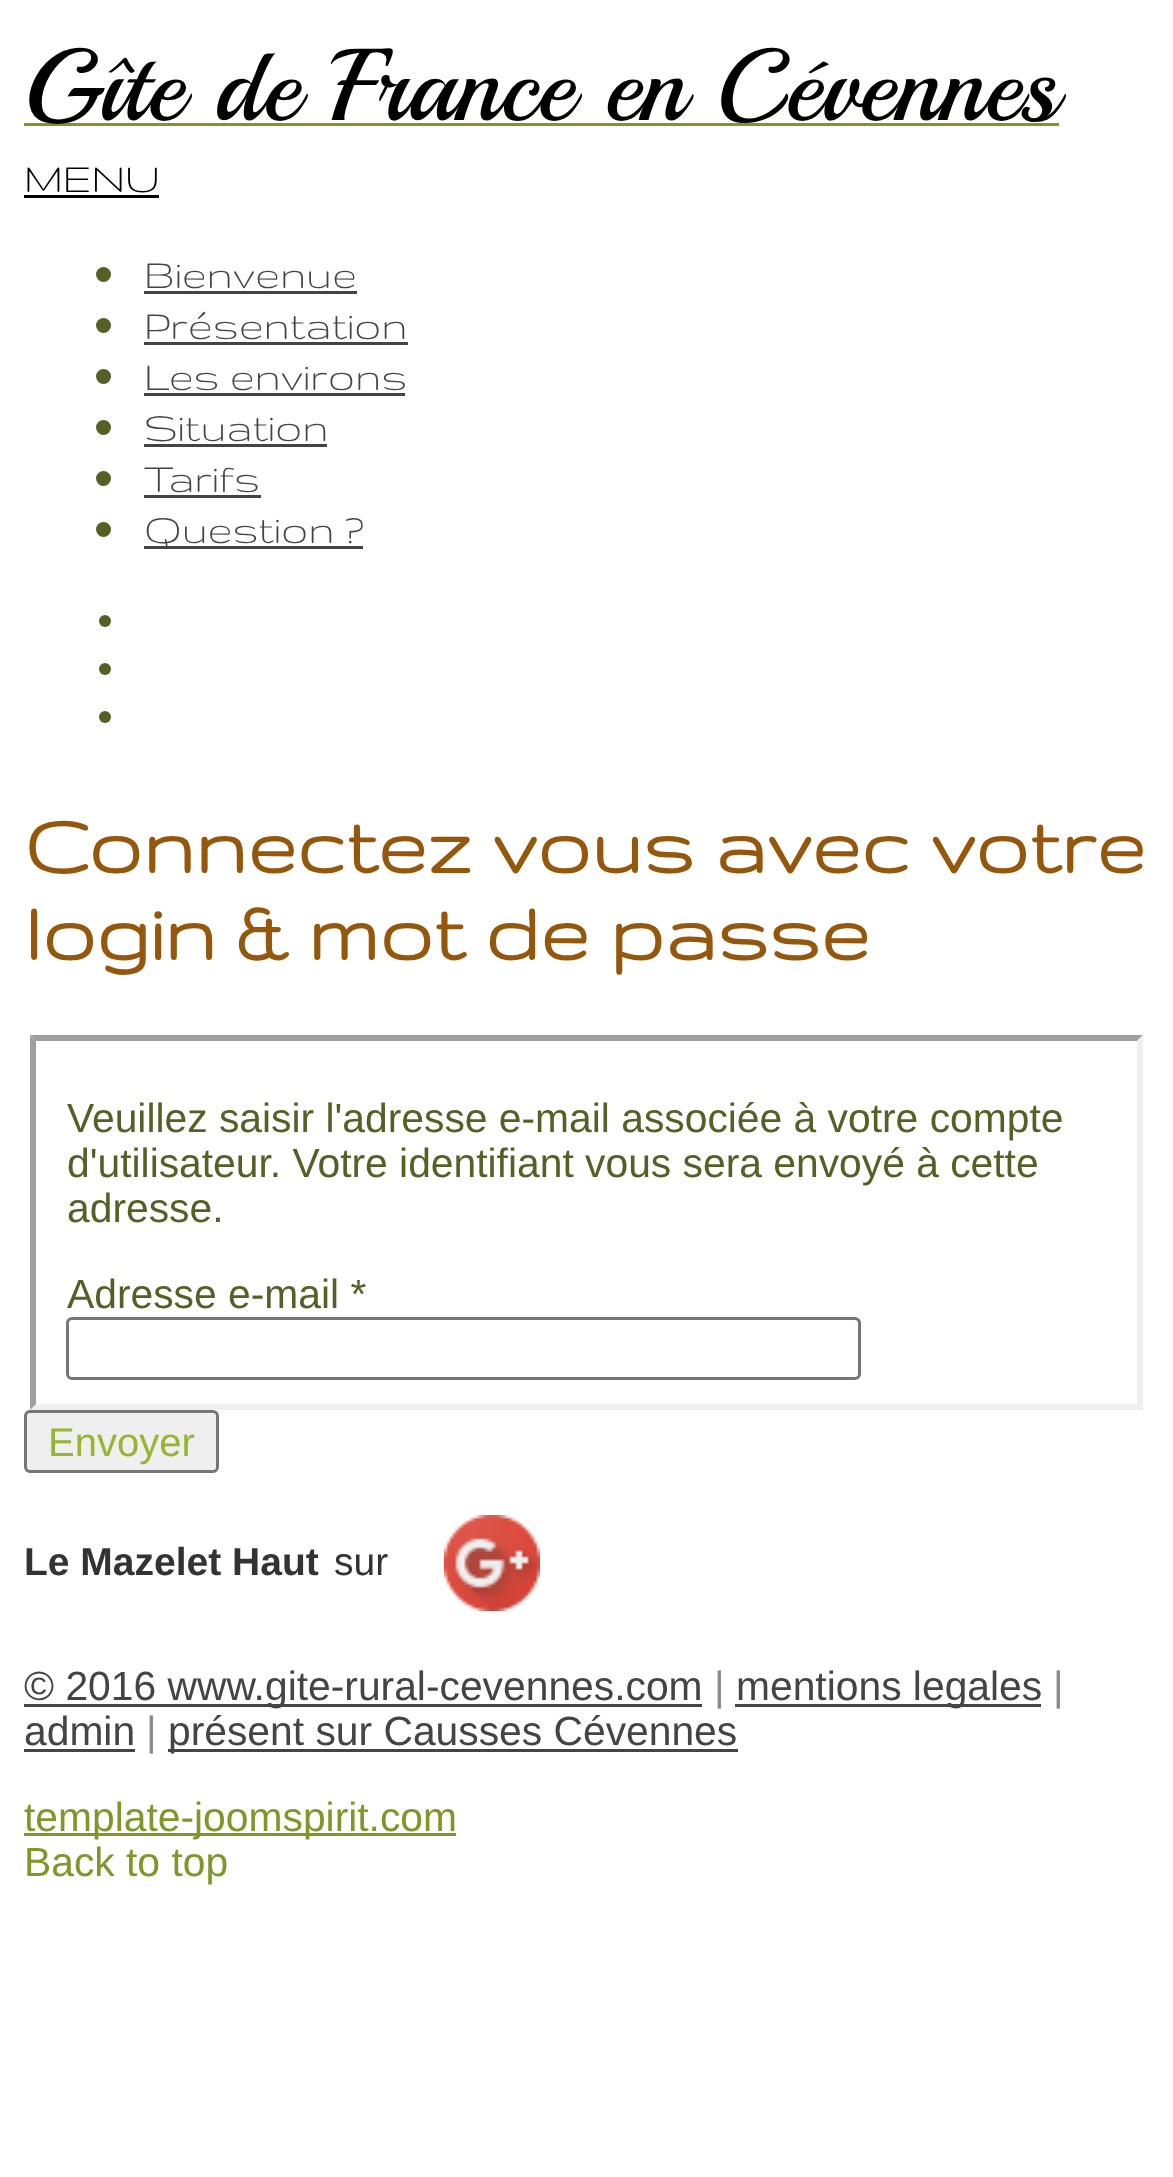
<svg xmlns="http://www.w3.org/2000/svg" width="1173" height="2177">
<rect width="100%" height="100%" fill="#fff"/>
<rect x="24" y="123" width="1035" height="3" fill="#7d9729"/>
<text x="24" y="120" style="font-family:Playball;font-size:102px;fill:#000">Gîte de France en Cévennes</text>
<text x="24" y="192" style="font-family:Gruppo;font-size:45px;fill:#000">MENU</text>
<rect x="24" y="195" width="135" height="3" fill="#000"/>
<circle cx="103.5" cy="274.5" r="7.5" fill="#565f26"/>
<text x="144" y="288" style="font-family:Gruppo;font-size:45px;fill:#444">Bienvenue</text>
<rect x="144" y="291" width="213" height="3" fill="#444"/>
<circle cx="103.5" cy="325.5" r="7.5" fill="#565f26"/>
<text x="144" y="339" style="font-family:Gruppo;font-size:45px;fill:#444">Présentation</text>
<rect x="144" y="342" width="264" height="3" fill="#444"/>
<circle cx="103.5" cy="376.5" r="7.5" fill="#565f26"/>
<text x="144" y="390" style="font-family:Gruppo;font-size:45px;fill:#444">Les environs</text>
<rect x="144" y="393" width="261" height="3" fill="#444"/>
<circle cx="103.5" cy="427.5" r="7.5" fill="#565f26"/>
<text x="144" y="441" style="font-family:Gruppo;font-size:45px;fill:#444">Situation</text>
<rect x="144" y="444" width="183" height="3" fill="#444"/>
<circle cx="103.5" cy="478.5" r="7.5" fill="#565f26"/>
<text x="144" y="492" style="font-family:Gruppo;font-size:45px;fill:#444">Tarifs</text>
<rect x="144" y="495" width="117" height="3" fill="#444"/>
<circle cx="103.5" cy="529.5" r="7.5" fill="#565f26"/>
<rect x="144" y="546" width="219" height="3" fill="#444"/>
<text x="144" y="543" style="font-family:Gruppo;font-size:45px;fill:#444">Question ?</text>
<circle cx="105" cy="621" r="6" fill="#565f26"/>
<circle cx="105" cy="669" r="6" fill="#565f26"/>
<circle cx="105" cy="717" r="6" fill="#565f26"/>
<text x="24" y="873" style="font-family:Gruppo;font-size:89.75px;font-weight:bold;fill:#94570b">Connectez vous avec votre</text>
<text x="24" y="960" style="font-family:Gruppo;font-size:89.75px;font-weight:bold;fill:#94570b">login &amp; mot de passe</text>
<path d="M30 1035h1113l-6 6h-1101z" fill="#9f9f9f"/>
<path d="M1143 1035v375l-6-6v-363z" fill="#efefef"/>
<path d="M1143 1410h-1113l6-6h1101z" fill="#efefef"/>
<path d="M30 1410v-375l6 6v363z" fill="#9f9f9f"/>
<text x="67" y="1132" style="font-family:Liberation Sans;font-size:40.8px;fill:#565f26">Veuillez saisir l'adresse e-mail associée à votre compte</text>
<text x="67" y="1177" style="font-family:Liberation Sans;font-size:40.8px;fill:#565f26">d'utilisateur. Votre identifiant vous sera envoyé à cette</text>
<text x="67" y="1222" style="font-family:Liberation Sans;font-size:40.8px;fill:#565f26">adresse.</text>
<text x="67" y="1308" style="font-family:Liberation Sans;font-size:40.8px;fill:#565f26">Adresse e-mail *</text>
<rect x="67.5" y="1318.5" width="792" height="60" rx="4.5" fill="none" stroke="#767676" stroke-width="3"/>
<rect x="25.5" y="1411.5" width="192" height="60" rx="4.5" fill="#efefef" stroke="#767676" stroke-width="3"/>
<text x="48" y="1456" style="font-family:Liberation Sans;font-size:40px;fill:#96b531">Envoyer</text>
<text x="24" y="1575" style="font-family:Liberation Sans;font-size:39px;font-weight:bold;fill:#333">Le Mazelet Haut</text>
<text x="334" y="1575" style="font-family:Liberation Sans;font-size:39px;fill:#333">sur</text>
<image x="444" y="1515" width="96" height="96" href="media/1.png"/>
<rect x="24" y="1704" width="678" height="3" fill="#444"/>
<text x="24" y="1700" style="font-family:Liberation Sans;font-size:40.8px;fill:#444">© 2016 www.gite-rural-cevennes.com</text>
<text x="714" y="1700" style="font-family:Liberation Sans;font-size:40.8px;fill:#888">|</text>
<rect x="735" y="1704" width="306" height="3" fill="#444"/>
<text x="736" y="1700" style="font-family:Liberation Sans;font-size:40.8px;fill:#444">mentions legales</text>
<text x="1053" y="1700" style="font-family:Liberation Sans;font-size:40.8px;fill:#888">|</text>
<text x="24" y="1745" style="font-family:Liberation Sans;font-size:40.8px;fill:#444">admin</text>
<rect x="24" y="1749" width="111" height="3" fill="#444"/>
<text x="146" y="1745" style="font-family:Liberation Sans;font-size:40.8px;fill:#888">|</text>
<rect x="168" y="1749" width="570" height="3" fill="#444"/>
<text x="168" y="1745" style="font-family:Liberation Sans;font-size:40.8px;fill:#444">présent sur Causses Cévennes</text>
<rect x="24" y="1833" width="432" height="3" fill="#7d9729"/>
<text x="24" y="1831" style="font-family:Liberation Sans;font-size:40.8px;fill:#7d9729">template-joomspirit.com</text>
<text x="24" y="1876" style="font-family:Liberation Sans;font-size:40.8px;fill:#7d9729">Back to top</text>
</svg>
